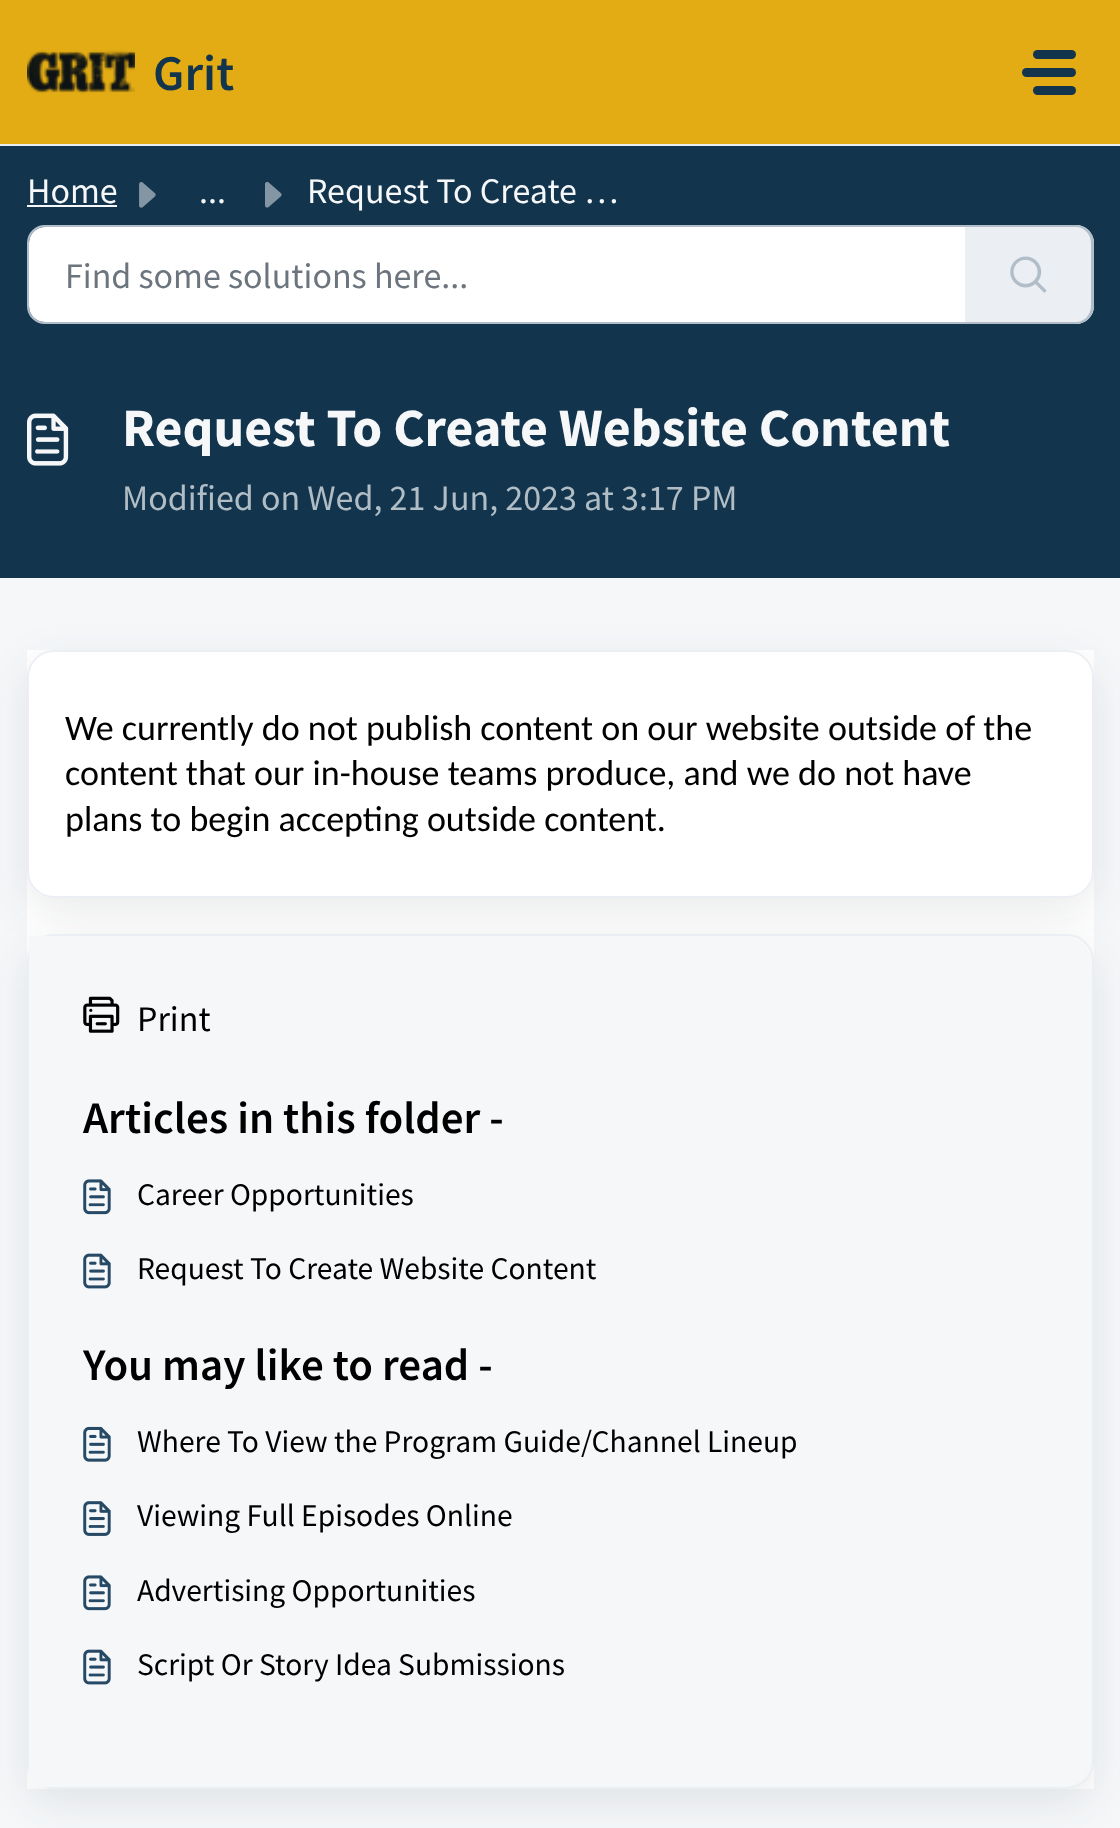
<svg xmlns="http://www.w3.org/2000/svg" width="1120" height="1828">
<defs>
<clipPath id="clip1"><path d="M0 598h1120v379h-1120zm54 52h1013c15 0 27 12 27 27v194c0 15-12 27-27 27h-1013c-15 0-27-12-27-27v-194c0-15 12-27 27-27z" clip-rule="evenodd"/></clipPath>
</defs>
<rect width="100%" height="100%" fill="#f5f7f9"/>
<rect width="1120" height="144" fill="#e3ac14"/>
<rect y="144" width="1120" height="2" fill="#ebeff3"/>
<image x="27" y="50" width="108" height="44" href="media/1.png"/>
<text x="153" y="90" style="font-family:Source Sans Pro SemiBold;font-size:50px;font-weight:600;fill:#12344d">Grit</text>
<rect x="1033" y="50" width="43" height="9" rx="4.5" fill="#12344d"/>
<rect x="1022" y="68" width="54" height="9" rx="4.5" fill="#12344d"/>
<rect x="1033" y="86" width="43" height="9" rx="4.5" fill="#12344d"/>
<rect y="146" width="1120" height="432" fill="#12344d"/>
<text x="27" y="203" style="font-family:Source Sans Pro;font-size:36px;fill:#f5f7f9">Home</text>
<rect x="27" y="205" width="90" height="2" fill="#f5f7f9"/>
<image x="139" y="182" width="17" height="26" href="media/2.png"/>
<text x="199" y="203" style="font-family:Source Sans Pro;font-size:36px;fill:#f5f7f9">...</text>
<image x="265" y="181" width="17" height="27" href="media/3.png"/>
<text x="307" y="203" style="font-family:Source Sans Pro;font-size:36px;fill:#f5f7f9">Request To Create …</text>
<path d="M45 227h920v95h-920c-9 0-16-7-16-16v-63c0-9 7-16 16-16z" fill="#fff"/>
<path d="M45 226h922v97h-922c-9.5 0-17-7.5-17-17v-63c0-9.5 7.5-17 17-17z" fill="none" stroke="#b1bdc8" stroke-width="2"/>
<text x="65" y="288" style="font-family:Source Sans Pro;font-size:36px;fill:#6c757d">Find some solutions here...</text>
<path d="M965 225h111c10 0 18 8 18 18v63c0 10-8 18-18 18h-111z" fill="#ebeff3"/>
<path d="M965 225h111c9 0 18 8 18 18v63c0 10-9 18-18 18h-111zm0 2h111c8 0 15 7 15 16v63c0 9-7 16-15 16h-111z" fill="#b1bdc8" fill-rule="evenodd"/>
<image x="1010" y="256" width="37" height="37" href="media/4.png"/>
<image x="27" y="413" width="42" height="53" href="media/5.png"/>
<text x="122" y="446" style="font-family:Source Sans Pro;font-size:54px;font-weight:bold;fill:#f5f7f9">Request To Create Website Content</text>
<text x="122" y="510" style="font-family:Source Sans Pro;font-size:36px;fill:#b1bdc5">Modified on Wed, 21 Jun, 2023 at 3:17 PM</text>
<rect x="27" y="650" width="1067" height="1139" fill="#fff"/>
<g clip-path="url(#clip1)">
<rect x="27" y="664" width="1067" height="247" rx="27" fill="#27313a1a" filter="blur(21.5px)"/>
</g>
<rect x="28" y="651" width="1065" height="246" rx="26" fill="none" stroke="#ebeff3" stroke-width="2"/>
<text x="65" y="740" style="font-family:Carlito;font-size:36px;fill:#000">We currently do not publish content on our website outside of the</text>
<text x="65" y="785" style="font-family:Carlito;font-size:36px;fill:#000">content that our in-house teams produce, and we do not have</text>
<text x="65" y="831" style="font-family:Carlito;font-size:36px;fill:#000">plans to begin accepting outside content.</text>
<rect x="27" y="947" width="1067" height="855" rx="27" fill="#27313a1a" filter="blur(21.5px)"/>
<rect x="28" y="935" width="1065" height="853" rx="26" fill="none" stroke="#ebeff3" stroke-width="2"/>
<path d="M29 936h1035c15 0 27 12 27 27v797c0 15-12 27-27 27h-1035z" fill="#f5f7f9"/>
<image x="83" y="996" width="37" height="37" href="media/6.png"/>
<text x="137" y="1031" style="font-family:Source Sans Pro;font-size:36px;fill:#000">Print</text>
<text x="83" y="1133" style="font-family:Source Sans Pro SemiBold;font-size:45px;font-weight:600;fill:#000">Articles in this folder -</text>
<image x="83" y="1179" width="28" height="36" href="media/7.png"/>
<text x="137" y="1205" style="font-family:Source Sans Pro;font-size:31.5px;fill:#000">Career Opportunities</text>
<image x="83" y="1253" width="28" height="36" href="media/8.png"/>
<text x="137" y="1279" style="font-family:Source Sans Pro;font-size:31.5px;fill:#000">Request To Create Website Content</text>
<text x="83" y="1380" style="font-family:Source Sans Pro SemiBold;font-size:45px;font-weight:600;fill:#000">You may like to read -</text>
<image x="83" y="1426" width="28" height="36" href="media/9.png"/>
<text x="137" y="1452" style="font-family:Source Sans Pro;font-size:31.5px;fill:#000">Where To View the Program Guide/Channel Lineup</text>
<image x="83" y="1501" width="28" height="35" href="media/10.png"/>
<text x="137" y="1526" style="font-family:Source Sans Pro;font-size:31.5px;fill:#000">Viewing Full Episodes Online</text>
<image x="83" y="1575" width="28" height="36" href="media/7.png"/>
<text x="137" y="1601" style="font-family:Source Sans Pro;font-size:31.5px;fill:#000">Advertising Opportunities</text>
<image x="83" y="1649" width="28" height="36" href="media/8.png"/>
<text x="137" y="1675" style="font-family:Source Sans Pro;font-size:31.5px;fill:#000">Script Or Story Idea Submissions</text>
</svg>
